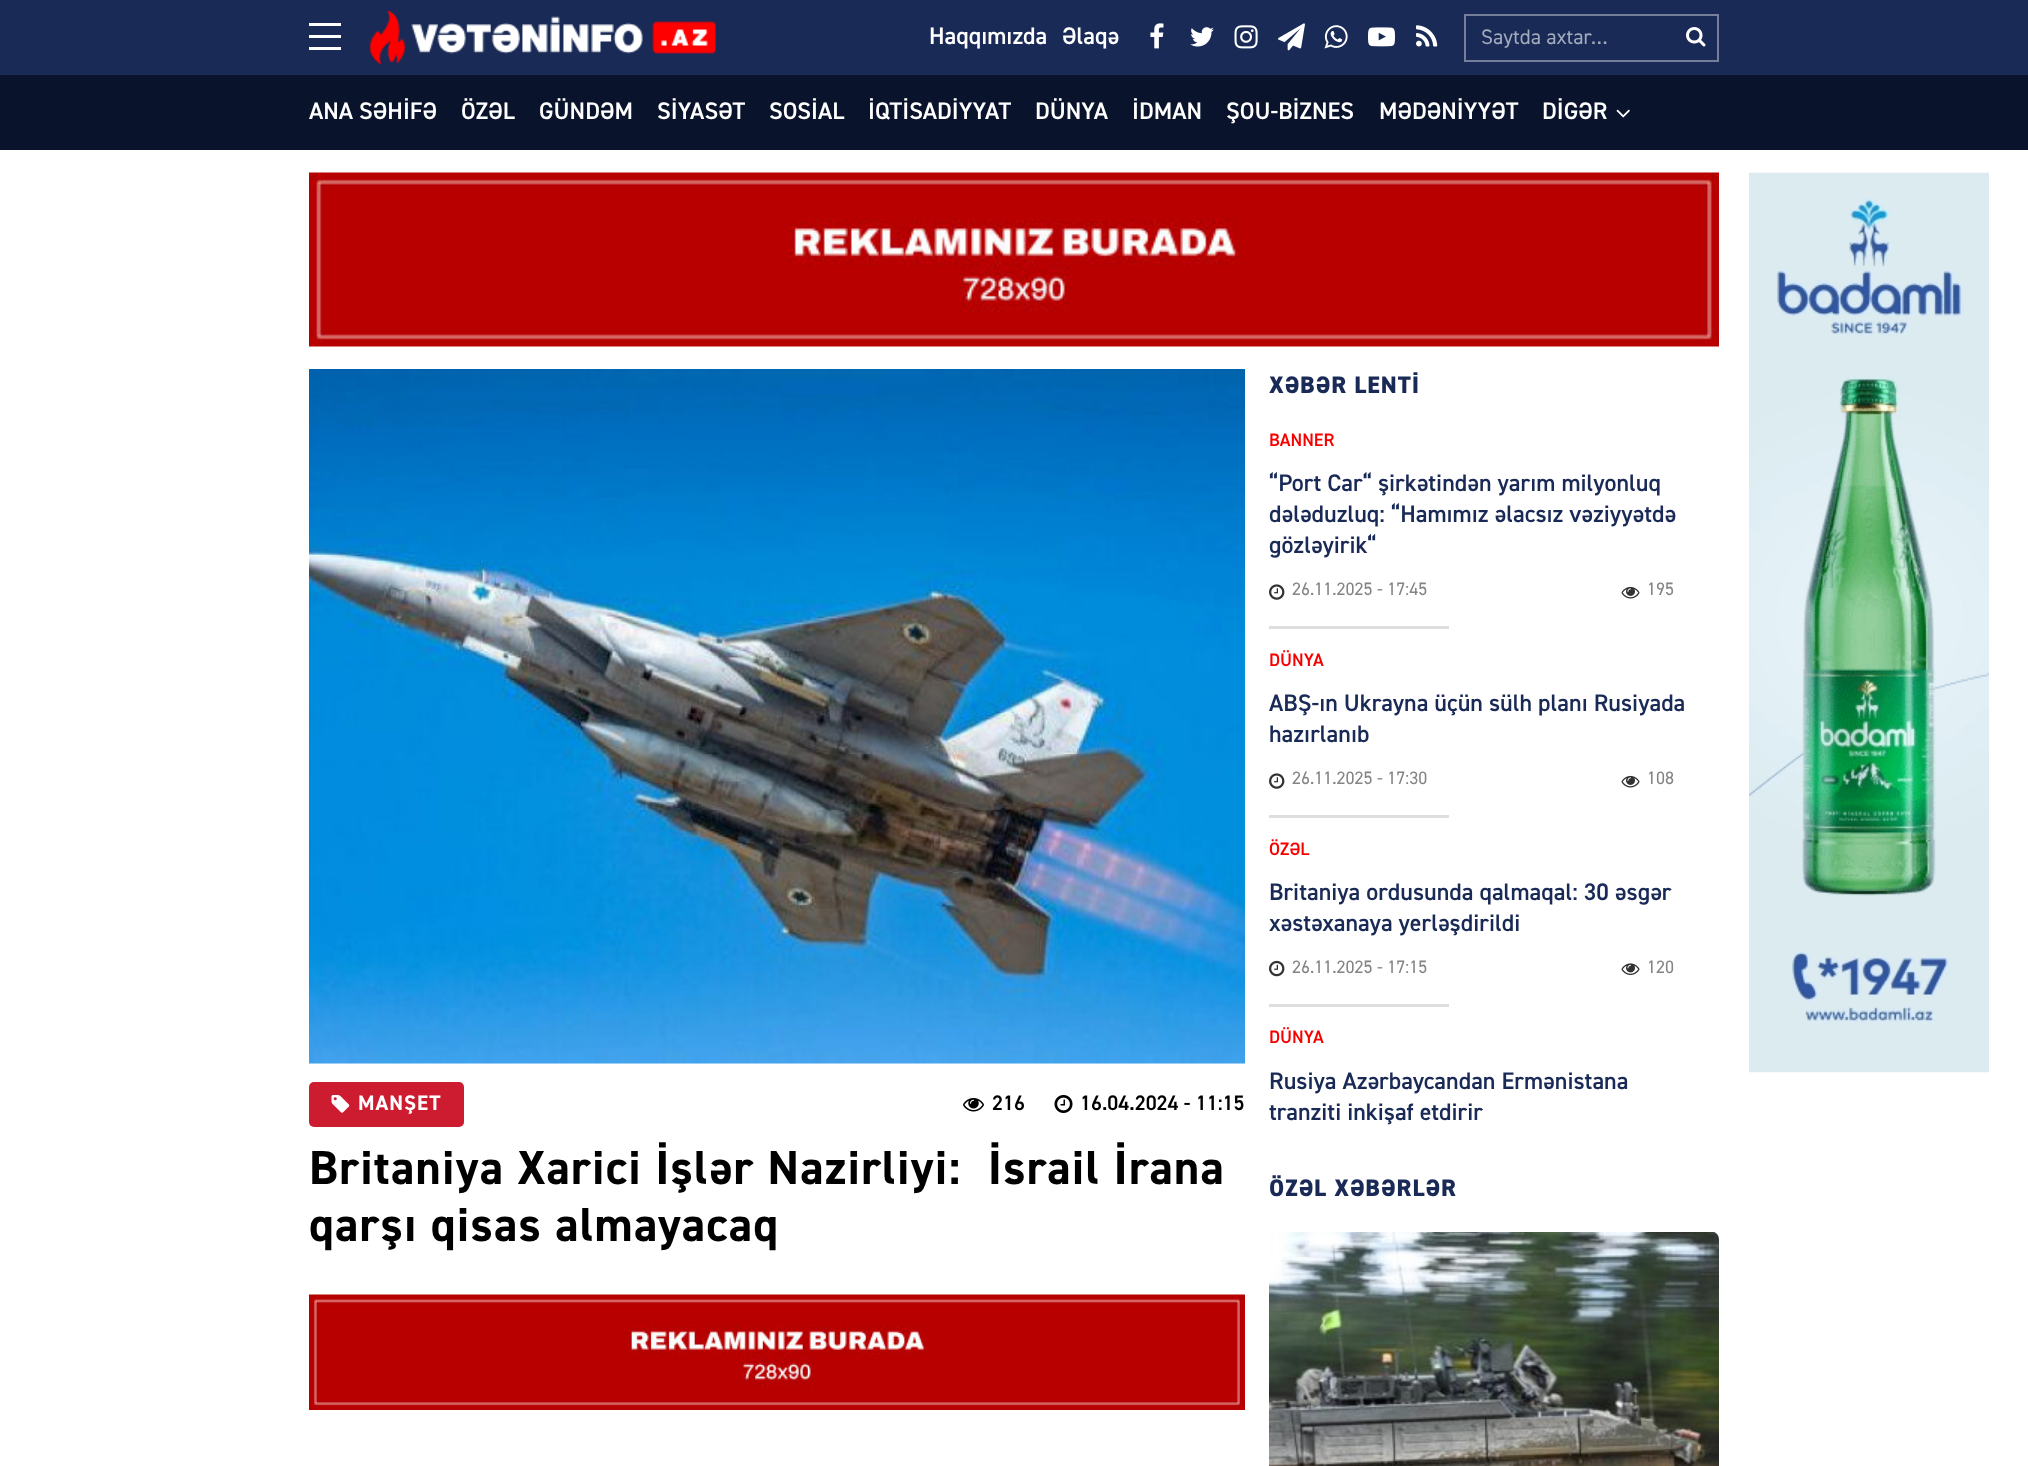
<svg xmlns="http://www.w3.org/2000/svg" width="2028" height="1466">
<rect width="100%" height="100%" fill="#fff"/>
<rect width="2028" height="75" fill="#192a56"/>
<rect x="309" y="35" width="32" height="3" fill="#fff"/>
<rect x="309" y="23" width="32" height="3" fill="#fff"/>
<rect x="309" y="47" width="32" height="3" fill="#fff"/>
<image x="369" y="9" width="347" height="56" href="media/1.png"/>
<text x="929" y="44" style="font-family:'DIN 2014';font-size:24px;font-weight:600;fill:#fff">Haqqımızda</text>
<text x="1062" y="44" style="font-family:'DIN 2014';font-size:24px;font-weight:600;fill:#fff">Əlaqə</text>
<image x="1150" y="23" width="14" height="26" href="media/2.png"/>
<image x="1190" y="27" width="24" height="20" href="media/3.png"/>
<image x="1234" y="25" width="24" height="24" href="media/4.png"/>
<image x="1278" y="23" width="27" height="28" href="media/5.png"/>
<image x="1324" y="25" width="24" height="24" href="media/6.png"/>
<image x="1368" y="27" width="27" height="20" href="media/7.png"/>
<image x="1416" y="25" width="22" height="22" href="media/8.png"/>
<rect x="1465" y="15" width="253" height="46" fill="none" stroke="#757f9a" stroke-width="2"/>
<text x="1481" y="44" style="font-family:'DIN 2014';font-size:21px;fill:#a3aabb">Saytda axtar…</text>
<image x="1686" y="27" width="20" height="20" href="media/9.png"/>
<rect y="75" width="2028" height="75" fill="#09132b"/>
<text x="309" y="119" style="font-family:'DIN 2014';font-size:24px;font-weight:600;fill:#fff">ANA SƏHİFƏ</text>
<text x="461" y="119" style="font-family:'DIN 2014';font-size:24px;font-weight:600;fill:#fff">ÖZƏL</text>
<text x="539" y="119" style="font-family:'DIN 2014';font-size:24px;font-weight:600;fill:#fff">GÜNDƏM</text>
<text x="657" y="119" style="font-family:'DIN 2014';font-size:24px;font-weight:600;fill:#fff">SİYASƏT</text>
<text x="769" y="119" style="font-family:'DIN 2014';font-size:24px;font-weight:600;fill:#fff">SOSİAL</text>
<text x="868" y="119" style="font-family:'DIN 2014';font-size:24px;font-weight:600;fill:#fff">İQTİSADİYYAT</text>
<text x="1035" y="119" style="font-family:'DIN 2014';font-size:24px;font-weight:600;fill:#fff">DÜNYA</text>
<text x="1132" y="119" style="font-family:'DIN 2014';font-size:24px;font-weight:600;fill:#fff">İDMAN</text>
<text x="1226" y="119" style="font-family:'DIN 2014';font-size:24px;font-weight:600;fill:#fff">ŞOU-BİZNES</text>
<text x="1379" y="119" style="font-family:'DIN 2014';font-size:24px;font-weight:600;fill:#fff">MƏDƏNİYYƏT</text>
<text x="1542" y="119" style="font-family:'DIN 2014';font-size:24px;font-weight:600;fill:#fff">DİGƏR</text>
<image x="1616" y="109" width="14" height="9" href="media/10.png"/>
<image x="309" y="172" width="1410" height="175" href="media/11.png"/>
<image x="1749" y="172" width="240" height="901" href="media/12.png"/>
<image x="309" y="369" width="936" height="695" href="media/13.png"/>
<rect x="309" y="1082" width="155" height="45" rx="5" fill="#cd1b30"/>
<image x="331" y="1095" width="19" height="18" href="media/14.png"/>
<text x="358" y="1110" style="font-family:'DIN 2014';font-size:21px;font-weight:bold;letter-spacing:1px;fill:#fff">MANŞET</text>
<image x="963" y="1098" width="21" height="14" href="media/15.png"/>
<text x="992" y="1110" style="font-family:'DIN 2014';font-size:21px;font-weight:600;fill:#000">216</text>
<image x="1054" y="1095" width="19" height="18" href="media/16.png"/>
<text x="1080" y="1110" style="font-family:'DIN 2014';font-size:21px;font-weight:600;fill:#000">16.04.2024 - 11:15</text>
<text x="309" y="1184" style="font-family:'DIN 2014';font-size:48px;font-weight:bold;letter-spacing:1.2px;fill:#000" xml:space="preserve">Britaniya Xarici İşlər Nazirliyi:  İsrail İrana</text>
<text x="309" y="1241" style="font-family:'DIN 2014';font-size:48px;font-weight:bold;letter-spacing:1.2px;fill:#000">qarşı qisas almayacaq</text>
<image x="309" y="1294" width="936" height="116" href="media/17.png"/>
<text x="1269" y="393" style="font-family:'DIN 2014';font-size:24px;font-weight:800;letter-spacing:1px;fill:#192a56">XƏBƏR LENTİ</text>
<text x="1269" y="446" style="font-family:'DIN 2014';font-size:18px;font-weight:600;fill:#f90000">BANNER</text>
<text x="1269" y="491" style="font-family:'DIN 2014';font-size:24px;font-weight:600;fill:#192a56">“Port Car“ şirkətindən yarım milyonluq</text>
<text x="1269" y="522" style="font-family:'DIN 2014';font-size:24px;font-weight:600;fill:#192a56">dələduzluq: “Hamımız əlacsız vəziyyətdə</text>
<text x="1269" y="553" style="font-family:'DIN 2014';font-size:24px;font-weight:600;fill:#192a56">gözləyirik“</text>
<image x="1269" y="584" width="16" height="16" href="media/18.png"/>
<text x="1292" y="595" style="font-family:'DIN 2014';font-size:18px;fill:#848484">26.11.2025 - 17:45</text>
<image x="1621" y="586" width="19" height="13" href="media/19.png"/>
<text x="1647" y="595" style="font-family:'DIN 2014';font-size:18px;fill:#848484">195</text>
<rect x="1269" y="626" width="180" height="3" fill="#dedede"/>
<text x="1269" y="666" style="font-family:'DIN 2014';font-size:18px;font-weight:600;fill:#f90000">DÜNYA</text>
<text x="1269" y="711" style="font-family:'DIN 2014';font-size:24px;font-weight:600;fill:#192a56">ABŞ-ın Ukrayna üçün sülh planı Rusiyada</text>
<text x="1269" y="742" style="font-family:'DIN 2014';font-size:24px;font-weight:600;fill:#192a56">hazırlanıb</text>
<image x="1269" y="773" width="16" height="16" href="media/18.png"/>
<text x="1292" y="784" style="font-family:'DIN 2014';font-size:18px;fill:#848484">26.11.2025 - 17:30</text>
<image x="1621" y="775" width="19" height="13" href="media/19.png"/>
<text x="1647" y="784" style="font-family:'DIN 2014';font-size:18px;fill:#848484">108</text>
<rect x="1269" y="815" width="180" height="3" fill="#dedede"/>
<text x="1269" y="855" style="font-family:'DIN 2014';font-size:18px;font-weight:600;fill:#f90000">ÖZƏL</text>
<text x="1269" y="900" style="font-family:'DIN 2014';font-size:24px;font-weight:600;fill:#192a56">Britaniya ordusunda qalmaqal: 30 əsgər</text>
<text x="1269" y="931" style="font-family:'DIN 2014';font-size:24px;font-weight:600;fill:#192a56">xəstəxanaya yerləşdirildi</text>
<image x="1269" y="960" width="16" height="17" href="media/20.png"/>
<text x="1292" y="973" style="font-family:'DIN 2014';font-size:18px;fill:#848484">26.11.2025 - 17:15</text>
<image x="1621" y="963" width="19" height="12" href="media/21.png"/>
<text x="1647" y="973" style="font-family:'DIN 2014';font-size:18px;fill:#848484">120</text>
<rect x="1269" y="1004" width="180" height="3" fill="#dedede"/>
<text x="1269" y="1043" style="font-family:'DIN 2014';font-size:18px;font-weight:600;fill:#f90000">DÜNYA</text>
<text x="1269" y="1089" style="font-family:'DIN 2014';font-size:24px;font-weight:600;fill:#192a56">Rusiya Azərbaycandan Ermənistana</text>
<text x="1269" y="1120" style="font-family:'DIN 2014';font-size:24px;font-weight:600;fill:#192a56">tranziti inkişaf etdirir</text>
<text x="1269" y="1196" style="font-family:'DIN 2014';font-size:24px;font-weight:800;letter-spacing:1px;fill:#192a56">ÖZƏL XƏBƏRLƏR</text>
<image x="1269" y="1232" width="450" height="7" href="media/22.png"/>
<image x="1269" y="1232" width="450" height="234" href="media/23.png"/>
</svg>
